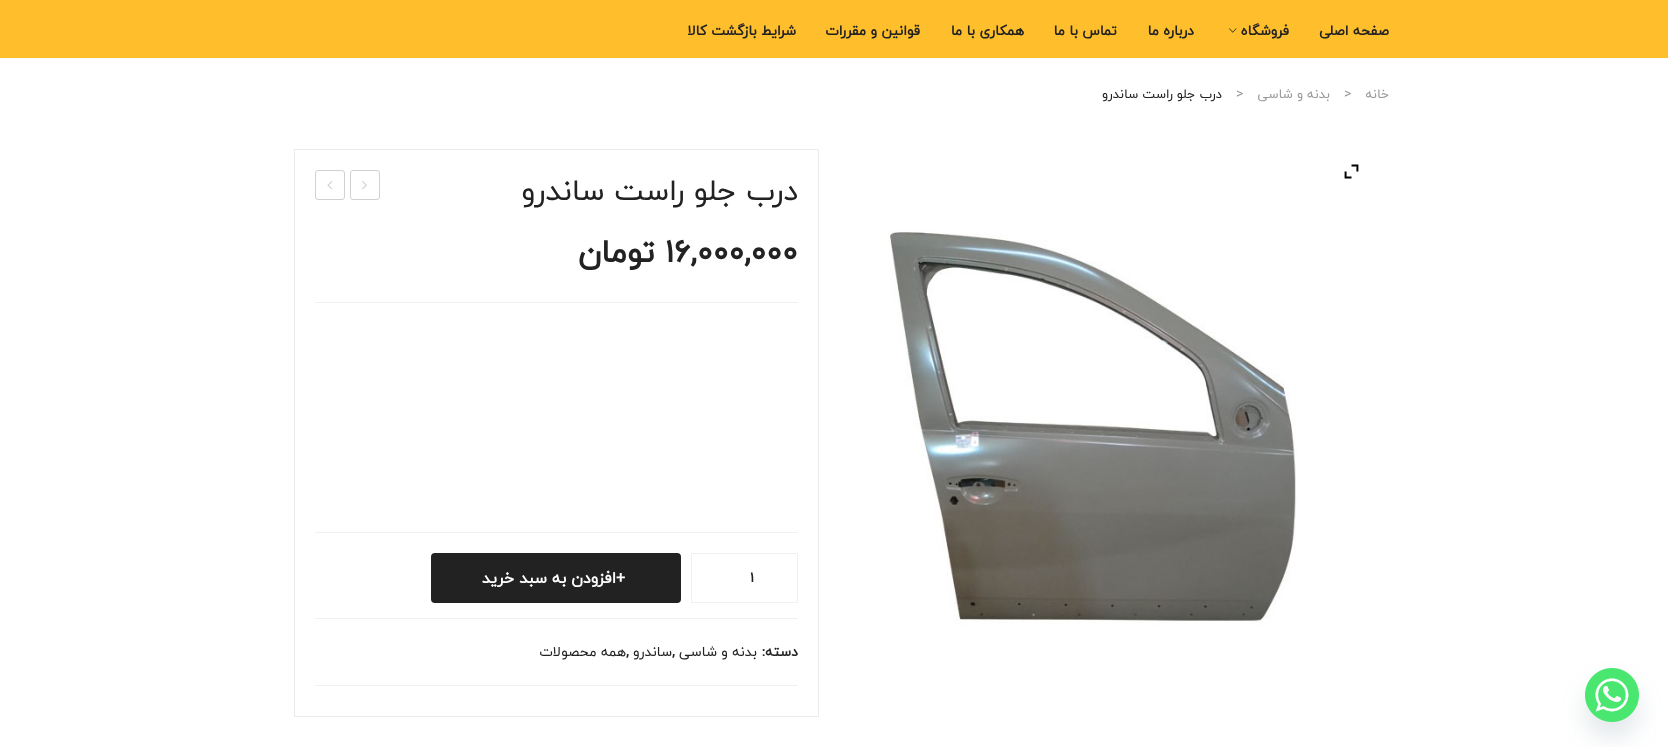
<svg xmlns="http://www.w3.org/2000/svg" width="1668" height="747">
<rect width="100%" height="100%" fill="#fff"/>
<rect width="1668" height="58" fill="#ffbf2d"/>
<text x="1389" y="35" style="font-family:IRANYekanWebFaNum;font-size:14px;font-weight:bold;direction:rtl;fill:#222">صفحه اصلی</text>
<text x="1289" y="35" style="font-family:IRANYekanWebFaNum;font-size:14px;font-weight:bold;direction:rtl;fill:#222">فروشگاه</text>
<image x="1229" y="28" width="8" height="5" href="media/1.png"/>
<text x="1194" y="35" style="font-family:IRANYekanWebFaNum;font-size:14px;font-weight:bold;direction:rtl;fill:#222">درباره ما</text>
<text x="1117" y="35" style="font-family:IRANYekanWebFaNum;font-size:14px;font-weight:bold;direction:rtl;fill:#222">تماس با ما</text>
<text x="1024" y="35" style="font-family:IRANYekanWebFaNum;font-size:14px;font-weight:bold;direction:rtl;fill:#222">همکاری با ما</text>
<text x="920" y="35" style="font-family:IRANYekanWebFaNum;font-size:14px;font-weight:bold;direction:rtl;fill:#222">قوانین و مقررات</text>
<text x="796" y="35" style="font-family:IRANYekanWebFaNum;font-size:14px;font-weight:bold;direction:rtl;fill:#222">شرایط بازگشت کالا</text>
<text x="1389" y="98" style="font-family:IRANYekanWebFaNum;font-size:13px;direction:rtl;fill:#999">خانه</text>
<text x="1344" y="98" style="font-family:IRANYekanWebFaNum;font-size:14px;fill:#999">&gt;</text>
<text x="1330" y="98" style="font-family:IRANYekanWebFaNum;font-size:13px;direction:rtl;fill:#999">بدنه و شاسی</text>
<text x="1236" y="98" style="font-family:IRANYekanWebFaNum;font-size:14px;fill:#999">&gt;</text>
<text x="1222" y="98" style="font-family:IRANYekanWebFaNum;font-size:13px;direction:rtl;fill:#222">درب جلو راست ساندرو</text>
<image x="1344" y="164" width="15" height="15" href="media/2.png"/>
<image x="888" y="230" width="409" height="395" href="media/3.png"/>
<rect x="294.5" y="149.5" width="524" height="567" fill="none" stroke="#ebebeb"/>
<text x="798" y="200" style="font-family:IRANYekanWebFaNum;font-size:30px;direction:rtl;fill:#222">درب جلو راست ساندرو</text>
<rect x="350.5" y="170.5" width="29" height="29" rx="2.5" fill="none" stroke="#d1d1d1"/>
<image x="362" y="181" width="5" height="9" href="media/4.png"/>
<rect x="315.5" y="170.5" width="29" height="29" rx="2.5" fill="none" stroke="#d1d1d1"/>
<image x="327" y="181" width="6" height="9" href="media/5.png"/>
<text x="665" y="262" style="font-family:IRANYekanWebFaNum;font-size:32px;font-weight:bold;fill:#222">16,000,000</text>
<text x="655" y="262" style="font-family:IRANYekanWebFaNum;font-size:32px;font-weight:bold;direction:rtl;fill:#222">تومان</text>
<rect x="315" y="302" width="483" height="1" fill="#f0f0f0"/>
<rect x="315" y="532" width="483" height="1" fill="#f0f0f0"/>
<rect x="691.5" y="553.5" width="106" height="49" fill="none" stroke="#f0f0f0"/>
<text x="750" y="582" style="font-family:IRANYekanWebFaNum;font-size:14px;font-weight:bold;fill:#222">1</text>
<rect x="431" y="553" width="250" height="50" rx="4" fill="#222"/>
<text x="616" y="583" style="font-family:IRANYekanWebFaNum;font-size:16px;font-weight:bold;fill:#fff">+</text>
<text x="616" y="583" style="font-family:IRANYekanWebFaNum;font-size:16px;font-weight:bold;direction:rtl;fill:#fff">افزودن به سبد خرید</text>
<rect x="315" y="618" width="483" height="1" fill="#f0f0f0"/>
<text x="798" y="656" style="font-family:IRANYekanWebFaNum;font-size:14px;font-weight:bold;direction:rtl;fill:#222">دسته:</text>
<text x="757" y="656" style="font-family:IRANYekanWebFaNum;font-size:14px;direction:rtl;fill:#222">بدنه و شاسی</text>
<text x="672" y="656" style="font-family:IRANYekanWebFaNum;font-size:14px;font-weight:bold;fill:#222">,</text>
<text x="672" y="656" style="font-family:IRANYekanWebFaNum;font-size:14px;direction:rtl;fill:#222">ساندرو</text>
<text x="626" y="656" style="font-family:IRANYekanWebFaNum;font-size:14px;font-weight:bold;fill:#222">,</text>
<text x="626" y="656" style="font-family:IRANYekanWebFaNum;font-size:14px;direction:rtl;fill:#222">همه محصولات</text>
<rect x="315" y="685" width="483" height="1" fill="#f0f0f0"/>
<rect x="1585" y="684" width="54" height="54" rx="27" fill="#49687e29" filter="blur(12px)"/>
<image x="1585" y="668" width="54" height="54" href="media/6.png"/>
</svg>
